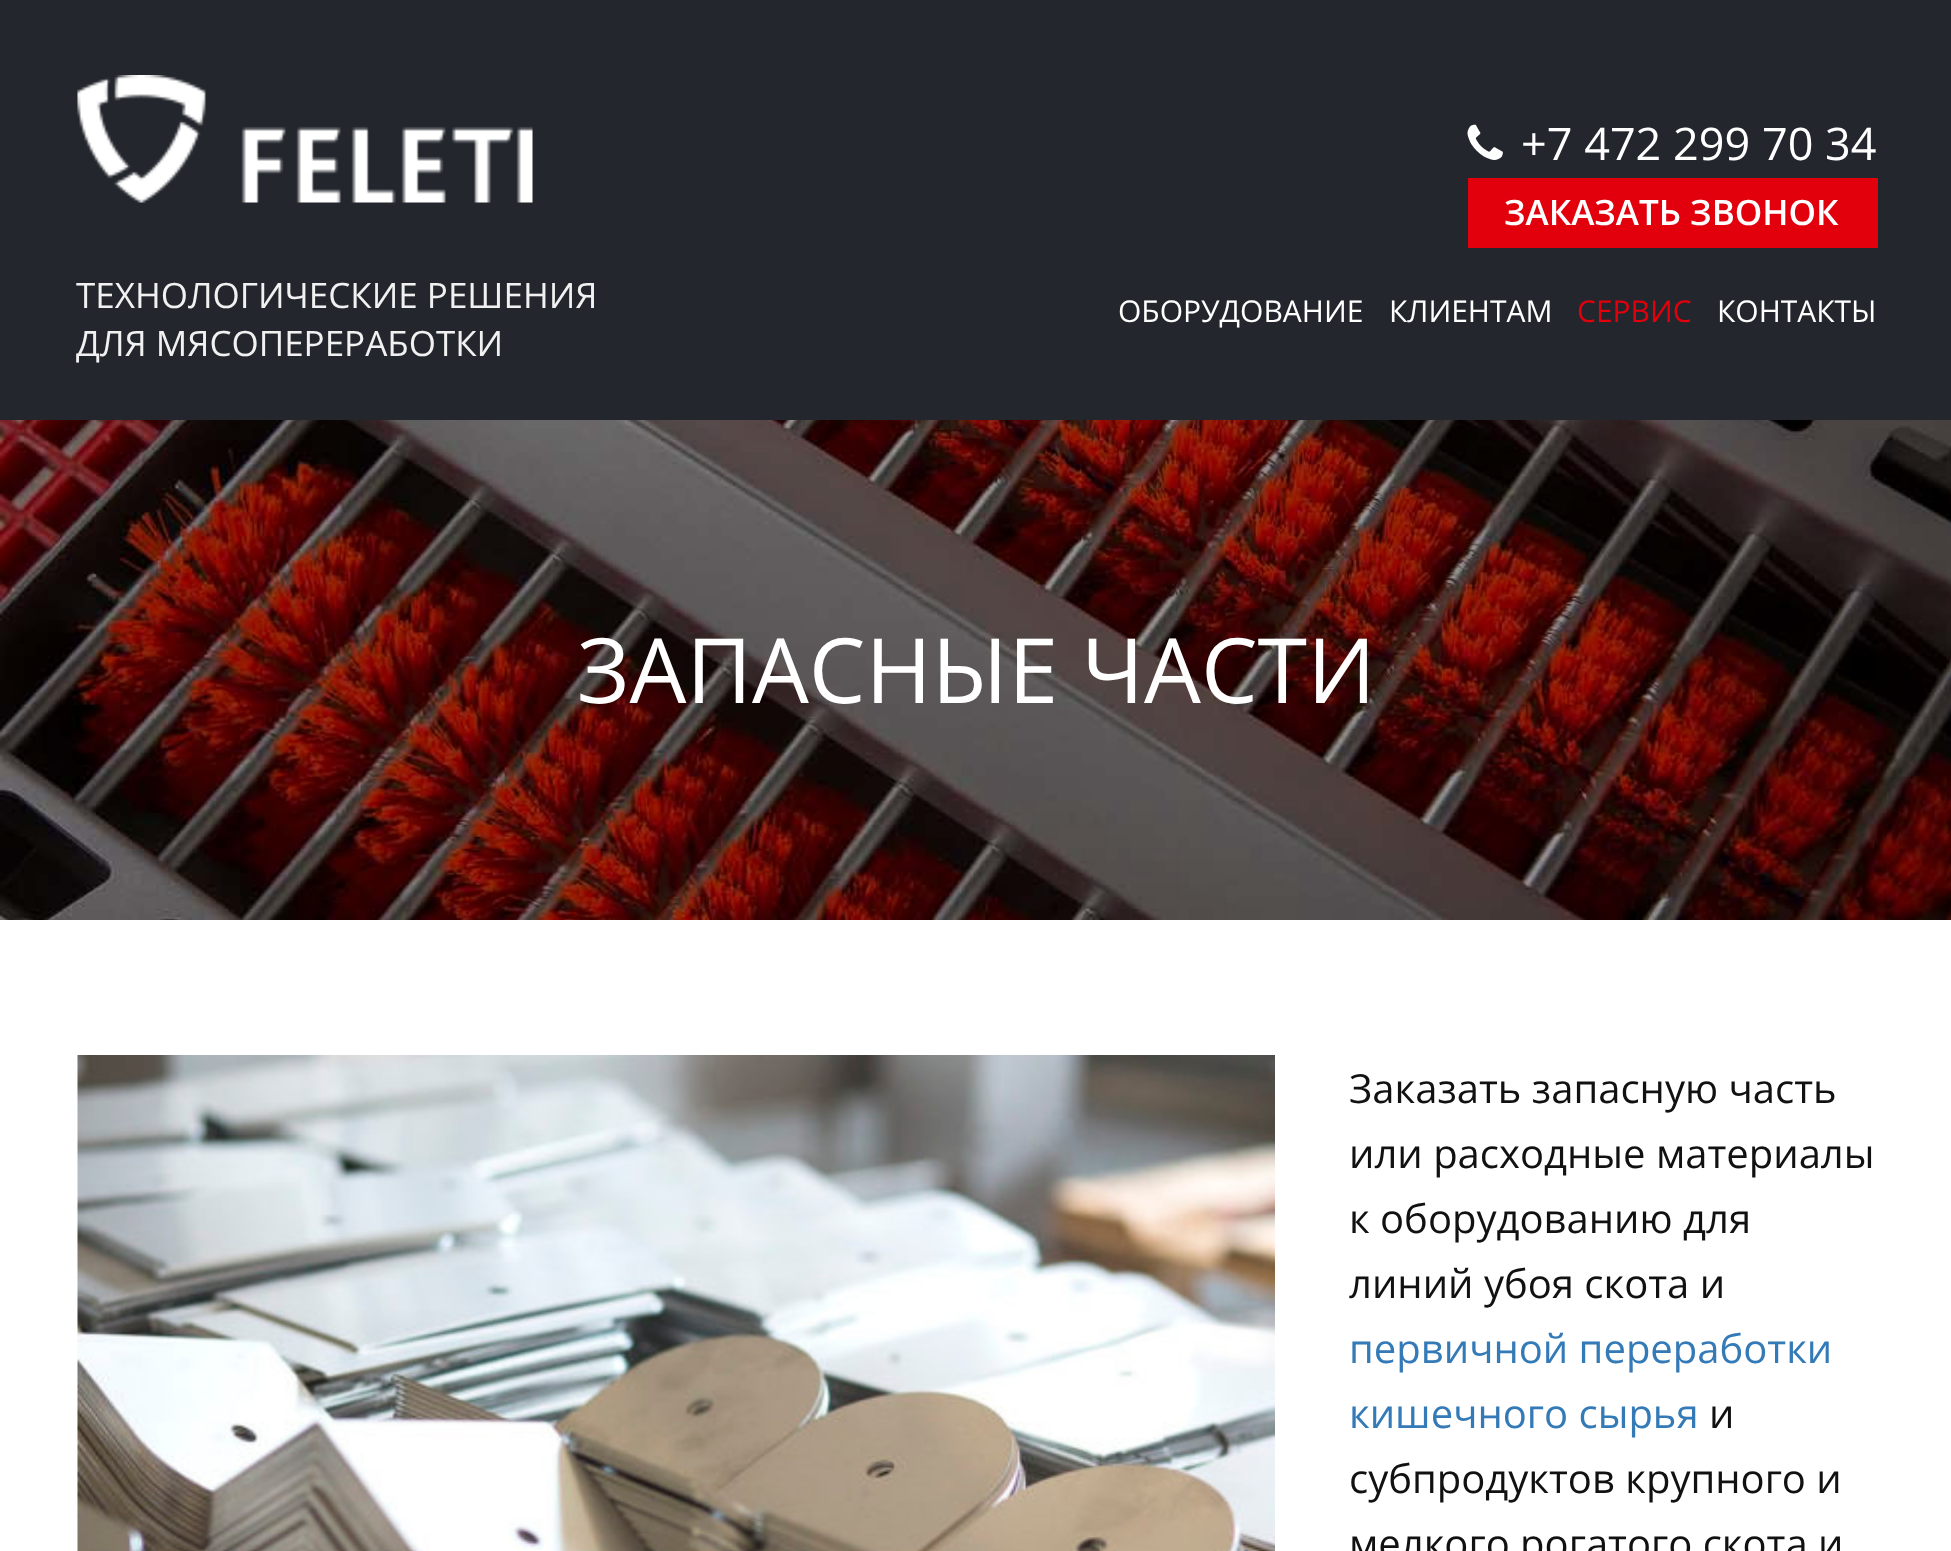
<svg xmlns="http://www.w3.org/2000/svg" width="1951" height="1551">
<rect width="100%" height="100%" fill="#fff"/>
<rect width="1951" height="420" fill="#23272d"/>
<image x="77" y="75" width="456" height="128" href="media/1.png"/>
<text x="76" y="308" style="font-family:Open Sans;font-size:35px;fill:#f1f1f1">ТЕХНОЛОГИЧЕСКИЕ РЕШЕНИЯ</text>
<text x="76" y="356" style="font-family:Open Sans;font-size:35px;fill:#f1f1f1">ДЛЯ МЯСОПЕРЕРАБОТКИ</text>
<image x="1467" y="124" width="36" height="36" href="media/2.png"/>
<text x="1521" y="160" style="font-family:Open Sans;font-size:45px;fill:#fff">+7 472 299 70 34</text>
<rect x="1468" y="178" width="410" height="70" fill="#e2000c"/>
<text x="1504" y="225" style="font-family:Open Sans;font-size:35px;font-weight:600;fill:#fff">ЗАКАЗАТЬ ЗВОНОК</text>
<text x="1118" y="322" style="font-family:Open Sans;font-size:30px;fill:#fff">ОБОРУДОВАНИЕ</text>
<text x="1389" y="322" style="font-family:Open Sans;font-size:30px;fill:#fff">КЛИЕНТАМ</text>
<text x="1577" y="322" style="font-family:Open Sans;font-size:30px;fill:#e2000c">СЕРВИС</text>
<text x="1717" y="322" style="font-family:Open Sans;font-size:30px;fill:#fff">КОНТАКТЫ</text>
<rect y="420" width="1951" height="500" fill="#000"/>
<image x="0" y="420" width="1951" height="500" href="media/3.png"/>
<text x="577" y="703" style="font-family:Open Sans;font-size:90px;fill:#fff">ЗАПАСНЫЕ ЧАСТИ</text>
<image x="77" y="1055" width="1198" height="496" href="media/4.png"/>
<text x="1349" y="1103" style="font-family:Open Sans;font-size:40px;fill:#111">Заказать запасную часть</text>
<text x="1349" y="1168" style="font-family:Open Sans;font-size:40px;fill:#111">или расходные материалы</text>
<text x="1349" y="1233" style="font-family:Open Sans;font-size:40px;fill:#111">к оборудованию для</text>
<text x="1349" y="1298" style="font-family:Open Sans;font-size:40px;fill:#111">линий убоя скота и</text>
<text x="1349" y="1363" style="font-family:Open Sans;font-size:40px;fill:#337ab7">первичной переработки</text>
<text x="1349" y="1428" style="font-family:Open Sans;font-size:40px;fill:#337ab7">кишечного сырья</text>
<text x="1709" y="1428" style="font-family:Open Sans;font-size:40px;fill:#111">и</text>
<text x="1349" y="1493" style="font-family:Open Sans;font-size:40px;fill:#111">субпродуктов крупного и</text>
<text x="1349" y="1558" style="font-family:Open Sans;font-size:40px;fill:#111">мелкого рогатого скота и</text>
</svg>
